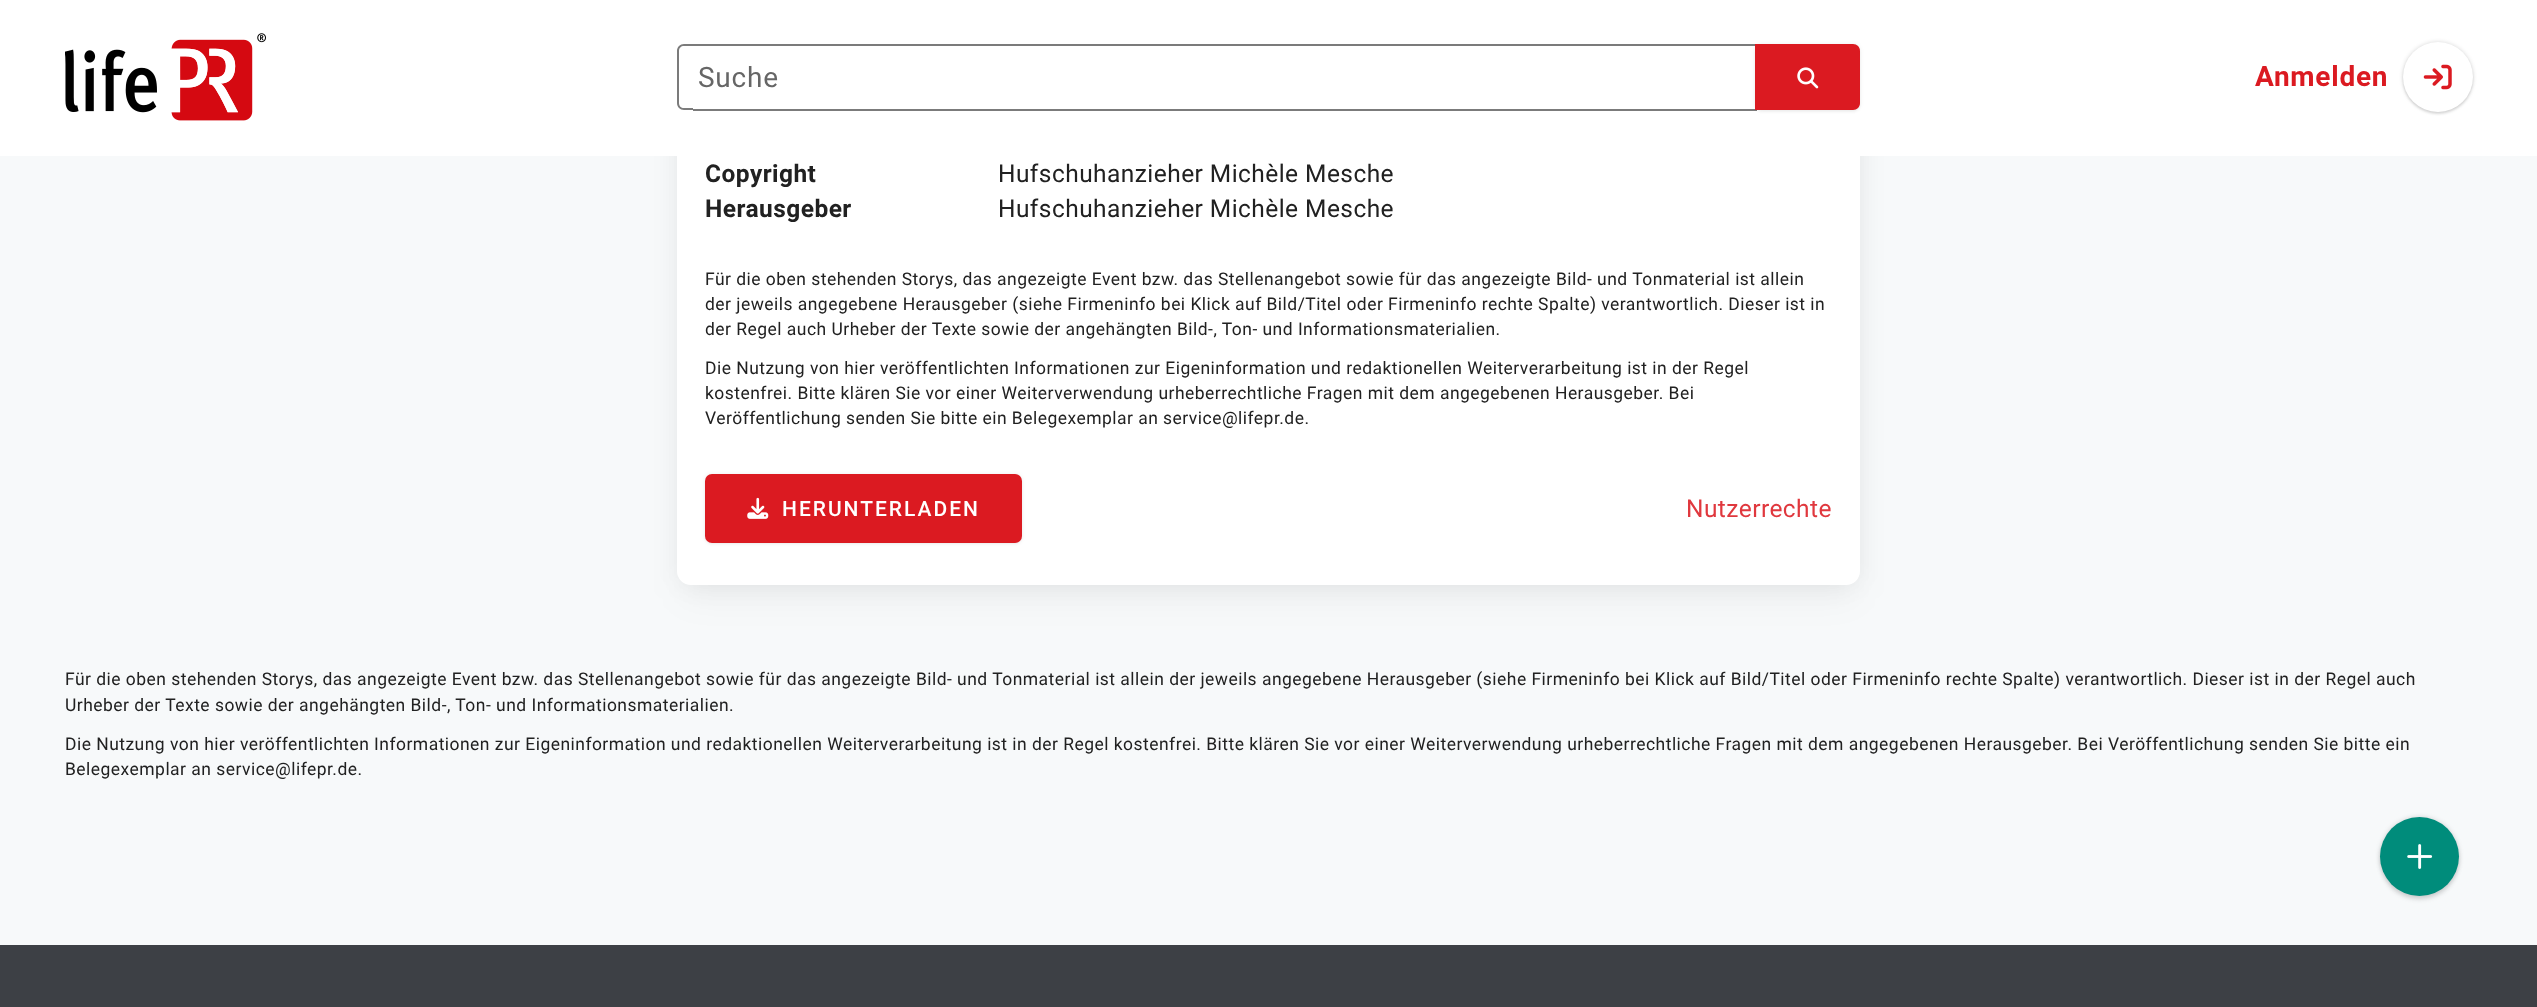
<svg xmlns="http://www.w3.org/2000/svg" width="2537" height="1007">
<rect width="100%" height="100%" fill="#f7f9fa"/>
<rect x="681" y="-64" width="1176" height="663" rx="11" fill="#0000000a" filter="blur(17.5px)"/>
<rect x="683" y="-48" width="1172" height="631" rx="9" fill="#00000012" filter="blur(13px)"/>
<rect x="677" y="-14" width="1183" height="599" rx="14" fill="#fff"/>
<rect width="2537" height="156" fill="#fff"/>
<image x="65" y="33" width="201" height="88" href="media/1.png"/>
<path d="M684 44h9v66h-9c-4 0-7-3-7-7v-52c0-4 3-7 7-7zm0 2h9v62h-9c-3 0-5-2-5-5v-52c0-3 2-5 5-5z" fill="#7b7b7b" fill-rule="evenodd"/>
<rect x="693" y="44" width="1064" height="2" fill="#7b7b7b"/>
<rect x="693" y="109" width="1064" height="2" fill="#7b7b7b"/>
<text x="698" y="87" style="font-family:Roboto;font-size:28px;letter-spacing:0.75px;fill:#666">Suche</text>
<rect x="1755" y="46" width="105" height="66" rx="7" fill="#0000000a" filter="blur(1px)"/>
<rect x="1755" y="44" width="105" height="66" rx="7" fill="#00000012" filter="blur(2px)"/>
<path d="M1755 44h98c4 0 7 3 7 7v52c0 4-3 7-7 7h-98z" fill="#db1a21"/>
<image x="1797" y="67" width="22" height="22" href="media/2.png"/>
<text x="2255" y="86" style="font-family:Roboto;font-size:28px;font-weight:bold;letter-spacing:0.75px;fill:#db1a21">Anmelden</text>
<rect x="2403" y="44" width="70" height="70" rx="35" fill="#0000001a" filter="blur(1px)"/>
<rect x="2403" y="42" width="70" height="70" rx="35" fill="#00000029" filter="blur(2px)"/>
<circle cx="2438" cy="77" r="35" fill="#fff"/>
<image x="2423" y="64" width="29" height="26" href="media/3.png"/>
<text x="705" y="182" style="font-family:Roboto;font-size:24.5px;font-weight:bold;letter-spacing:0.45px;fill:#212121">Copyright</text>
<text x="998" y="182" style="font-family:Roboto;font-size:24.5px;letter-spacing:0.45px;fill:#212121">Hufschuhanzieher Michèle Mesche</text>
<text x="705" y="217" style="font-family:Roboto;font-size:24.5px;font-weight:bold;letter-spacing:0.45px;fill:#212121">Herausgeber</text>
<text x="998" y="217" style="font-family:Roboto;font-size:24.5px;letter-spacing:0.45px;fill:#212121">Hufschuhanzieher Michèle Mesche</text>
<text x="705" y="285" style="font-family:Roboto;font-size:17.5px;letter-spacing:0.47px;fill:#212121">Für die oben stehenden Storys, das angezeigte Event bzw. das Stellenangebot sowie für das angezeigte Bild- und Tonmaterial ist allein</text>
<text x="705" y="310" style="font-family:Roboto;font-size:17.5px;letter-spacing:0.47px;fill:#212121">der jeweils angegebene Herausgeber (siehe Firmeninfo bei Klick auf Bild/Titel oder Firmeninfo rechte Spalte) verantwortlich. Dieser ist in</text>
<text x="705" y="335" style="font-family:Roboto;font-size:17.5px;letter-spacing:0.47px;fill:#212121">der Regel auch Urheber der Texte sowie der angehängten Bild-, Ton- und Informationsmaterialien.</text>
<text x="705" y="374" style="font-family:Roboto;font-size:17.5px;letter-spacing:0.47px;fill:#212121">Die Nutzung von hier veröffentlichten Informationen zur Eigeninformation und redaktionellen Weiterverarbeitung ist in der Regel</text>
<text x="705" y="399" style="font-family:Roboto;font-size:17.5px;letter-spacing:0.47px;fill:#212121">kostenfrei. Bitte klären Sie vor einer Weiterverwendung urheberrechtliche Fragen mit dem angegebenen Herausgeber. Bei</text>
<text x="705" y="424" style="font-family:Roboto;font-size:17.5px;letter-spacing:0.47px;fill:#212121">Veröffentlichung senden Sie bitte ein Belegexemplar an service@lifepr.de.</text>
<rect x="705" y="476" width="317" height="68" rx="7" fill="#0000000a" filter="blur(1px)"/>
<rect x="705" y="474" width="317" height="69" rx="7" fill="#00000012" filter="blur(2px)"/>
<rect x="705" y="474" width="317" height="69" rx="7" fill="#db1a21"/>
<image x="747" y="497" width="22" height="22" href="media/4.png"/>
<text x="782" y="516" style="font-family:Roboto;font-size:21px;font-weight:500;letter-spacing:2px;fill:#fff">HERUNTERLADEN</text>
<text x="1686" y="517" style="font-family:Roboto;font-size:24.5px;letter-spacing:0.45px;fill:#e0383e">Nutzerrechte</text>
<text x="65" y="685" style="font-family:Roboto;font-size:17.5px;letter-spacing:0.47px;fill:#212121">Für die oben stehenden Storys, das angezeigte Event bzw. das Stellenangebot sowie für das angezeigte Bild- und Tonmaterial ist allein der jeweils angegebene Herausgeber (siehe Firmeninfo bei Klick auf Bild/Titel oder Firmeninfo rechte Spalte) verantwortlich. Dieser ist in der Regel auch</text>
<text x="65" y="711" style="font-family:Roboto;font-size:17.5px;letter-spacing:0.47px;fill:#212121">Urheber der Texte sowie der angehängten Bild-, Ton- und Informationsmaterialien.</text>
<text x="65" y="750" style="font-family:Roboto;font-size:17.5px;letter-spacing:0.47px;fill:#212121">Die Nutzung von hier veröffentlichten Informationen zur Eigeninformation und redaktionellen Weiterverarbeitung ist in der Regel kostenfrei. Bitte klären Sie vor einer Weiterverwendung urheberrechtliche Fragen mit dem angegebenen Herausgeber. Bei Veröffentlichung senden Sie bitte ein</text>
<text x="65" y="775" style="font-family:Roboto;font-size:17.5px;letter-spacing:0.47px;fill:#212121">Belegexemplar an service@lifepr.de.</text>
<rect x="2380" y="821" width="79" height="79" rx="39.5" fill="#0000001a" filter="blur(2px)"/>
<rect x="2380" y="817" width="79" height="79" rx="39.5" fill="#00000029" filter="blur(2.5px)"/>
<circle cx="2419.5" cy="856.5" r="39.5" fill="#008c7b"/>
<image x="2407" y="844" width="26" height="25" href="media/5.png"/>
<rect y="945" width="2537" height="62" fill="#3d4045"/>
</svg>
